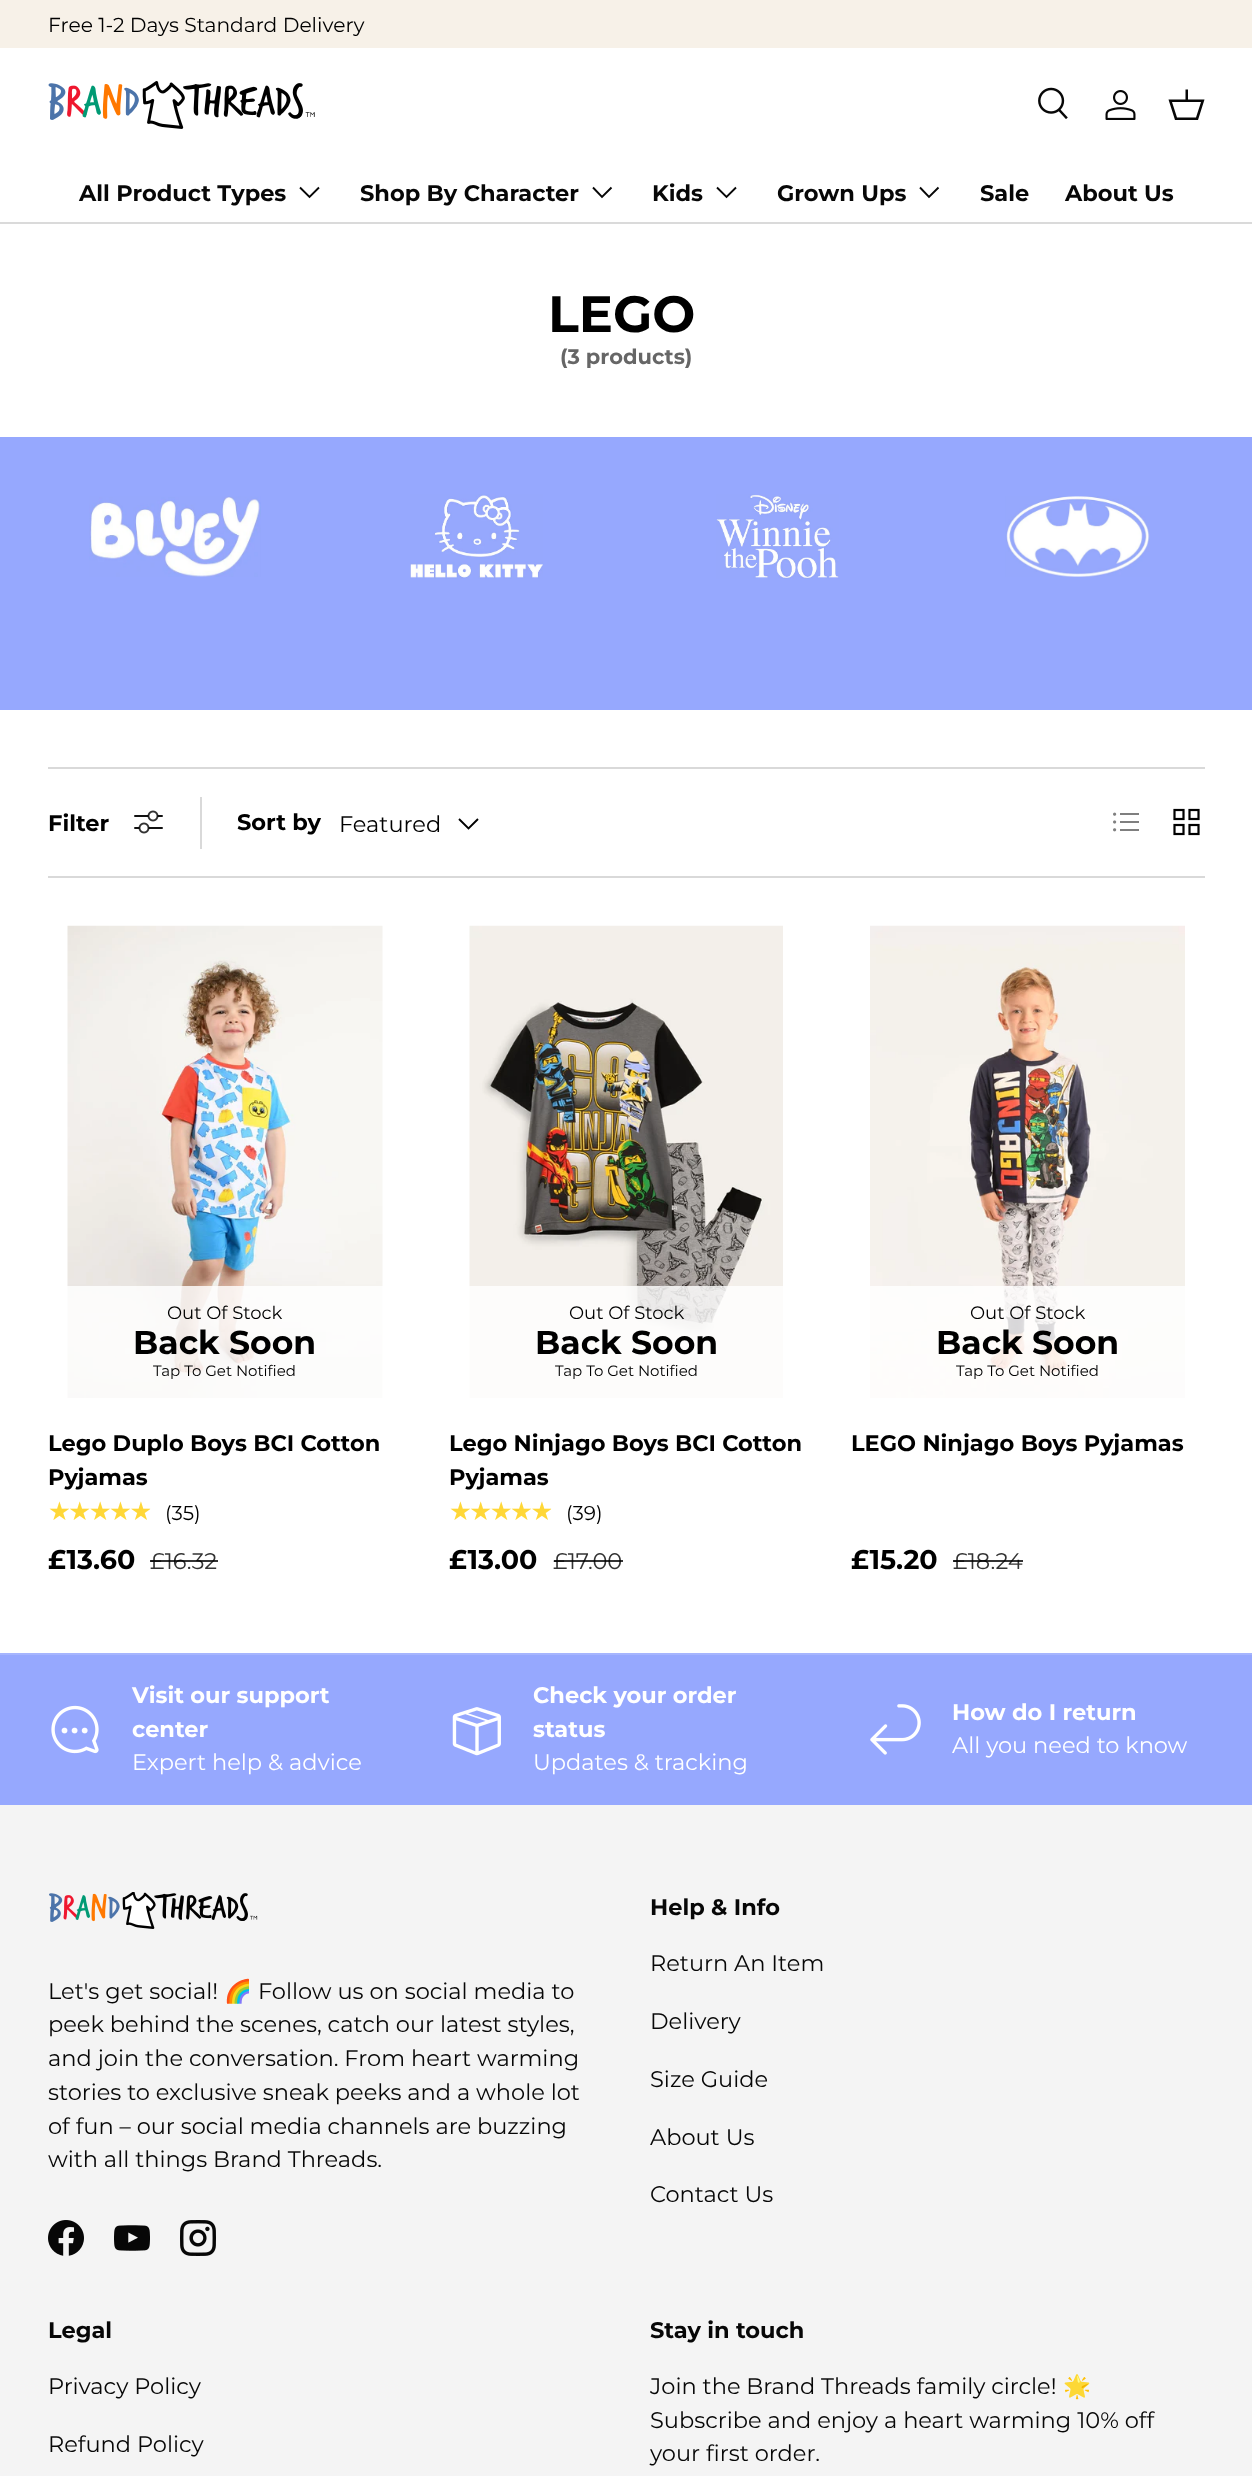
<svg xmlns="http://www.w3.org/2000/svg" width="1252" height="2476">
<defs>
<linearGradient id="g1" gradientUnits="userSpaceOnUse" x1="48" y1="1512" x2="150" y2="1512"><stop offset="1" stop-color="#ffd737"/><stop offset="1" stop-color="#fff7d7"/></linearGradient>
<linearGradient id="g2" gradientUnits="userSpaceOnUse" x1="449" y1="1512" x2="551" y2="1512"><stop offset="1" stop-color="#ffd737"/><stop offset="1" stop-color="#fff7d7"/></linearGradient>
</defs>
<rect width="100%" height="100%" fill="#fff"/>
<rect width="1252" height="48" fill="#f7f1e8"/>
<text x="48" y="32" style="font-family:Montserrat;font-size:20.25px;fill:#000">Free 1-2 Days Standard Delivery</text>
<rect y="222" width="1252" height="2" fill="#dadada"/>
<image x="48" y="81" width="267" height="48" href="media/1.png"/>
<image x="1038" y="87" width="30" height="32" href="media/2.png"/>
<image x="1105" y="90" width="31" height="30" href="media/3.png"/>
<path d="M1185.5 99.5v-10h2.5v10h16.5l-6.5 20.5h-23l-6.5-20.5zm-13.5 2.5l5 15.5h19l5-15.5z" fill="#070707"/>
<text x="79" y="201" style="font-family:Montserrat;font-size:22.5px;font-weight:bold;fill:#070707">All Product Types</text>
<path d="M319 187.5l-9.5 9.5l-9.5-9.5" fill="none" stroke="#070707" stroke-width="1.9"/>
<text x="360" y="201" style="font-family:Montserrat;font-size:22.5px;font-weight:bold;fill:#070707">Shop By Character</text>
<path d="M611.5 187.5l-9.5 9.5l-9-9.5" fill="none" stroke="#070707" stroke-width="1.9"/>
<text x="652" y="201" style="font-family:Montserrat;font-size:22.5px;font-weight:bold;fill:#070707">Kids</text>
<path d="M736 187.5l-9.5 9.5l-9.5-9.5" fill="none" stroke="#070707" stroke-width="1.9"/>
<text x="777" y="201" style="font-family:Montserrat;font-size:22.5px;font-weight:bold;fill:#070707">Grown Ups</text>
<path d="M938.5 187.5l-9.5 9.5l-9-9.5" fill="none" stroke="#070707" stroke-width="1.9"/>
<text x="980" y="201" style="font-family:Montserrat;font-size:22.5px;font-weight:bold;fill:#070707">Sale</text>
<text x="1065" y="201" style="font-family:Montserrat;font-size:22.5px;font-weight:bold;fill:#070707">About Us</text>
<text x="548" y="332" style="font-family:Montserrat;font-size:51px;font-weight:bold;fill:#000">LEGO</text>
<text x="560" y="364" style="font-family:Montserrat;font-size:21px;font-weight:bold;fill:#666">(3 products)</text>
<rect y="437" width="1252" height="273" fill="#96a8fe"/>
<image x="89" y="496" width="172" height="81" href="media/4.png"/>
<image x="410" y="494" width="133" height="85" href="media/5.png"/>
<image x="716" y="494" width="123" height="85" href="media/6.png"/>
<image x="1005" y="496" width="145" height="81" href="media/7.png"/>
<rect x="48" y="767" width="1157" height="2" fill="#d9d9d9"/>
<rect x="48" y="876" width="1157" height="2" fill="#d9d9d9"/>
<text x="48" y="831" style="font-family:Montserrat;font-size:22.5px;font-weight:bold;fill:#000">Filter</text>
<image x="134" y="810" width="29" height="24" href="media/8.png"/>
<rect x="200" y="797" width="2" height="52" fill="#d9d9d9"/>
<text x="237" y="830" style="font-family:Montserrat;font-size:22.5px;font-weight:bold;fill:#000">Sort by</text>
<text x="339" y="832" style="font-family:Montserrat;font-size:22.5px;fill:#000">Featured</text>
<path d="M478 819l-9.5 9.5l-9.5-9.5" fill="none" stroke="#000" stroke-width="1.9"/>
<image x="1113" y="812" width="26" height="20" href="media/9.png"/>
<image x="1173" y="808" width="27" height="28" href="media/10.png"/>
<image x="67" y="925" width="316" height="473" href="media/11.png"/>
<rect x="67" y="1286" width="316" height="112" fill="#ffffffd1"/>
<text x="167" y="1319" style="font-family:Montserrat;font-size:18px;fill:#000">Out Of Stock</text>
<text x="133" y="1354" style="font-family:Montserrat;font-size:33px;font-weight:bold;fill:#000">Back Soon</text>
<text x="153" y="1376" style="font-family:Montserrat;font-size:15px;fill:#000">Tap To Get Notified</text>
<text x="48" y="1451" style="font-family:Montserrat;font-size:22.5px;font-weight:bold;fill:#000">Lego Duplo Boys BCI Cotton</text>
<text x="48" y="1485" style="font-family:Montserrat;font-size:22.5px;font-weight:bold;fill:#000">Pyjamas</text>
<text x="48" y="1520" style="font-family:DejaVu Sans;font-size:25.5px;letter-spacing:-2.5px;fill:url(#g1)">★★★★★</text>
<text x="165" y="1520" style="font-family:Montserrat;font-size:20px;fill:#000">(35)</text>
<text x="48" y="1569" style="font-family:Montserrat;font-size:27px;font-weight:bold;fill:#000">£13.60</text>
<text x="150" y="1569" style="font-family:Montserrat;font-size:22.5px;fill:#333">£16.32</text>
<rect x="150" y="1560" width="68" height="2" fill="#000000cc"/>
<image x="469" y="925" width="314" height="473" href="media/12.png"/>
<rect x="469" y="1286" width="314" height="112" fill="#ffffffd1"/>
<text x="569" y="1319" style="font-family:Montserrat;font-size:18px;fill:#000">Out Of Stock</text>
<text x="535" y="1354" style="font-family:Montserrat;font-size:33px;font-weight:bold;fill:#000">Back Soon</text>
<text x="555" y="1376" style="font-family:Montserrat;font-size:15px;fill:#000">Tap To Get Notified</text>
<text x="449" y="1451" style="font-family:Montserrat;font-size:22.5px;font-weight:bold;fill:#000">Lego Ninjago Boys BCI Cotton</text>
<text x="449" y="1485" style="font-family:Montserrat;font-size:22.5px;font-weight:bold;fill:#000">Pyjamas</text>
<text x="449" y="1520" style="font-family:DejaVu Sans;font-size:25.5px;letter-spacing:-2.5px;fill:url(#g2)">★★★★★</text>
<text x="566" y="1520" style="font-family:Montserrat;font-size:20px;fill:#000">(39)</text>
<text x="449" y="1569" style="font-family:Montserrat;font-size:27px;font-weight:bold;fill:#000">£13.00</text>
<text x="553" y="1569" style="font-family:Montserrat;font-size:22.5px;fill:#333">£17.00</text>
<rect x="554" y="1560" width="69" height="2" fill="#000000cc"/>
<image x="870" y="925" width="315" height="473" href="media/13.png"/>
<rect x="870" y="1286" width="315" height="112" fill="#ffffffd1"/>
<text x="970" y="1319" style="font-family:Montserrat;font-size:18px;fill:#000">Out Of Stock</text>
<text x="936" y="1354" style="font-family:Montserrat;font-size:33px;font-weight:bold;fill:#000">Back Soon</text>
<text x="956" y="1376" style="font-family:Montserrat;font-size:15px;fill:#000">Tap To Get Notified</text>
<text x="851" y="1451" style="font-family:Montserrat;font-size:22.5px;font-weight:bold;fill:#000">LEGO Ninjago Boys Pyjamas</text>
<text x="851" y="1569" style="font-family:Montserrat;font-size:27px;font-weight:bold;fill:#000">£15.20</text>
<text x="953" y="1569" style="font-family:Montserrat;font-size:22.5px;fill:#333">£18.24</text>
<rect x="953" y="1560" width="70" height="2" fill="#000000cc"/>
<rect y="1655" width="1252" height="150" fill="#96a8fe"/>
<rect y="1653" width="1252" height="2" fill="#a6b5fe"/>
<image x="51" y="1705" width="48" height="49" href="media/14.png"/>
<text x="132" y="1703" style="font-family:Montserrat;font-size:22.5px;font-weight:bold;fill:#fff">Visit our support</text>
<text x="132" y="1737" style="font-family:Montserrat;font-size:22.5px;font-weight:bold;fill:#fff">center</text>
<text x="132" y="1770" style="font-family:Montserrat;font-size:22.5px;fill:#fff">Expert help &amp; advice</text>
<image x="452" y="1707" width="49" height="49" href="media/15.png"/>
<text x="533" y="1703" style="font-family:Montserrat;font-size:22.5px;font-weight:bold;fill:#fff">Check your order</text>
<text x="533" y="1737" style="font-family:Montserrat;font-size:22.5px;font-weight:bold;fill:#fff">status</text>
<text x="533" y="1770" style="font-family:Montserrat;font-size:22.5px;fill:#fff">Updates &amp; tracking</text>
<image x="870" y="1704" width="51" height="51" href="media/16.png"/>
<text x="952" y="1720" style="font-family:Montserrat;font-size:22.5px;font-weight:bold;fill:#fff">How do I return</text>
<text x="952" y="1753" style="font-family:Montserrat;font-size:22.5px;fill:#fff">All you need to know</text>
<rect y="1805" width="1252" height="671" fill="#f4f4f4"/>
<image x="49" y="1892" width="209" height="37" href="media/17.png"/>
<text x="48" y="1999" style="font-family:Montserrat;font-size:22.5px;fill:#070707">Let's get social!</text>
<text x="224" y="1999" style="font-family:Noto Color Emoji;font-size:22.5px;fill:#070707">🌈</text>
<text x="258" y="1999" style="font-family:Montserrat;font-size:22.5px;fill:#070707">Follow us on social media to</text>
<text x="48" y="2032" style="font-family:Montserrat;font-size:22.5px;fill:#070707">peek behind the scenes, catch our latest styles,</text>
<text x="48" y="2066" style="font-family:Montserrat;font-size:22.5px;fill:#070707">and join the conversation. From heart warming</text>
<text x="48" y="2100" style="font-family:Montserrat;font-size:22.5px;fill:#070707">stories to exclusive sneak peeks and a whole lot</text>
<text x="48" y="2134" style="font-family:Montserrat;font-size:22.5px;fill:#070707">of fun – our social media channels are buzzing</text>
<text x="48" y="2167" style="font-family:Montserrat;font-size:22.5px;fill:#070707">with all things Brand Threads.</text>
<image x="48" y="2220" width="36" height="36" href="media/18.png"/>
<image x="114" y="2225" width="36" height="26" href="media/19.png"/>
<image x="180" y="2220" width="36" height="36" href="media/20.png"/>
<text x="650" y="1915" style="font-family:Montserrat;font-size:22.5px;font-weight:bold;fill:#070707">Help &amp; Info</text>
<text x="650" y="1971" style="font-family:Montserrat;font-size:22.5px;fill:#070707">Return An Item</text>
<text x="650" y="2029" style="font-family:Montserrat;font-size:22.5px;fill:#070707">Delivery</text>
<text x="650" y="2087" style="font-family:Montserrat;font-size:22.5px;fill:#070707">Size Guide</text>
<text x="650" y="2145" style="font-family:Montserrat;font-size:22.5px;fill:#070707">About Us</text>
<text x="650" y="2202" style="font-family:Montserrat;font-size:22.5px;fill:#070707">Contact Us</text>
<text x="48" y="2338" style="font-family:Montserrat;font-size:22.5px;font-weight:bold;fill:#070707">Legal</text>
<text x="48" y="2394" style="font-family:Montserrat;font-size:22.5px;fill:#070707">Privacy Policy</text>
<text x="48" y="2452" style="font-family:Montserrat;font-size:22.5px;fill:#070707">Refund Policy</text>
<text x="650" y="2338" style="font-family:Montserrat;font-size:22.5px;font-weight:bold;fill:#070707">Stay in touch</text>
<text x="650" y="2394" style="font-family:Montserrat;font-size:22.5px;fill:#070707">Join the Brand Threads family circle!</text>
<text x="1063" y="2394" style="font-family:Noto Color Emoji;font-size:22.5px;fill:#070707">🌟</text>
<text x="650" y="2428" style="font-family:Montserrat;font-size:22.5px;fill:#070707">Subscribe and enjoy a heart warming 10% off</text>
<text x="650" y="2461" style="font-family:Montserrat;font-size:22.5px;fill:#070707">your first order.</text>
</svg>
